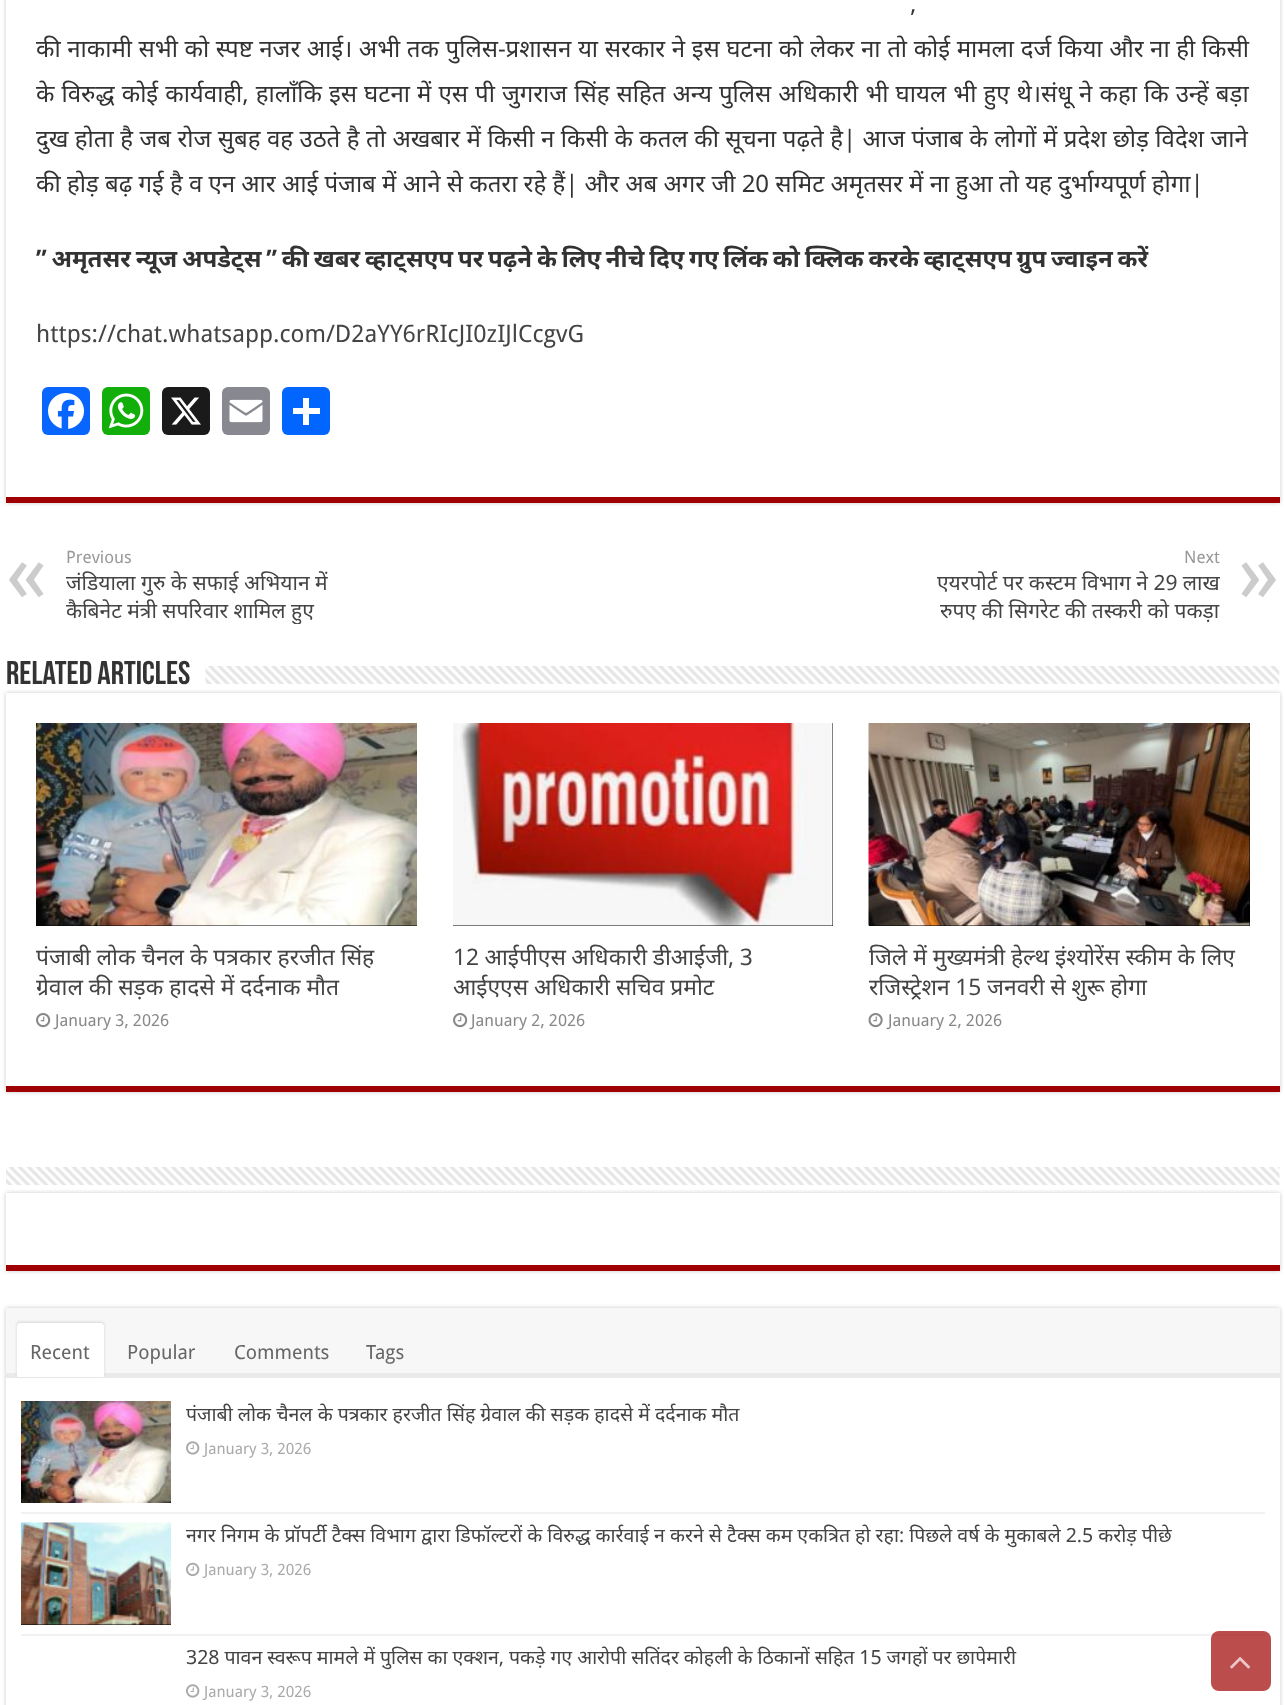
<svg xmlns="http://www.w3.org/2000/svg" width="1285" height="1705">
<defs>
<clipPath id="clip1"><rect x="6" y="548" width="1274" height="76"/></clipPath>
</defs>
<rect width="100%" height="100%" fill="#fff"/>
<rect x="6" y="-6" width="1274" height="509" fill="#cacaca" filter="blur(2px)"/>
<rect x="6" width="1274" height="497" fill="#fff"/>
<rect x="6" y="497" width="1274" height="6" fill="#9f0102"/>
<text x="910" y="12" word-spacing="1" style="font-family:Noto Sans;font-size:24px;fill:#333">,</text>
<text x="36" y="57" word-spacing="0.35" style="font-family:Noto Sans;font-size:24px;fill:#333">की नाकामी सभी को स्पष्ट नजर आई। अभी तक पुलिस-प्रशासन या सरकार ने इस घटना को लेकर ना तो कोई मामला दर्ज किया और ना ही किसी</text>
<text x="36" y="102" word-spacing="0.85" style="font-family:Noto Sans;font-size:24px;fill:#333">के विरुद्ध कोई कार्यवाही, हालाँकि इस घटना में एस पी जुगराज सिंह सहित अन्य पुलिस अधिकारी भी घायल भी हुए थे।संधू ने कहा कि उन्हें बड़ा</text>
<text x="36" y="147" word-spacing="0.25" style="font-family:Noto Sans;font-size:24px;fill:#333">दुख होता है जब रोज सुबह वह उठते है तो अखबार में किसी न किसी के कतल की सूचना पढ़ते है| आज पंजाब के लोगों में प्रदेश छोड़ विदेश जाने</text>
<text x="36" y="192" style="font-family:Noto Sans;font-size:24px;fill:#333">की होड़ बढ़ गई है व एन आर आई पंजाब में आने से कतरा रहे हैं| और अब अगर जी 20 समिट अमृतसर में ना हुआ तो यह दुर्भाग्यपूर्ण होगा|</text>
<text x="36" y="267" word-spacing="-1.4" style="font-family:Noto Sans;font-size:24px;font-weight:bold;fill:#333">” अमृतसर न्यूज अपडेट्स ” की खबर व्हाट्सएप पर पढ़ने के लिए नीचे दिए गए लिंक को क्लिक करके व्हाट्सएप ग्रुप ज्वाइन करें</text>
<text x="36" y="342" style="font-family:Droid Sans;font-size:24px;fill:#444">https://chat.whatsapp.com/D2aYY6rRIcJI0zIJlCcgvG</text>
<rect x="42" y="387" width="48" height="48" rx="6" fill="#0866ff"/>
<image x="48" y="393" width="36" height="36" href="media/1.png"/>
<rect x="102" y="387" width="48" height="48" rx="6" fill="#12af0a"/>
<image x="108" y="393" width="36" height="36" href="media/2.png"/>
<rect x="162" y="387" width="48" height="48" rx="6" fill="#1a1a1a"/>
<image x="171" y="397" width="30" height="28" href="media/3.png"/>
<rect x="222" y="387" width="48" height="48" rx="6" fill="#888990"/>
<image x="229" y="399" width="34" height="24" href="media/4.png"/>
<rect x="282" y="387" width="48" height="48" rx="6" fill="#0166ff"/>
<rect x="303" y="398" width="6" height="27" fill="#fff"/>
<rect x="293" y="408" width="27" height="6" fill="#fff"/>
<text x="66" y="563" style="font-family:Droid Sans;font-size:17px;fill:#999">Previous</text>
<text x="6" y="602" style="font-family:Droid Sans;font-size:84px;fill:#ccc">«</text>
<text x="66" y="590" style="font-family:Noto Sans;font-size:21px;fill:#444">जंडियाला गुरु के सफाई अभियान में</text>
<g clip-path="url(#clip1)">
<text x="66" y="618" style="font-family:Noto Sans;font-size:21px;fill:#444">कैबिनेट मंत्री सपरिवार शामिल हुए</text>
</g>
<text x="1184" y="563" style="font-family:Droid Sans;font-size:17px;fill:#999">Next</text>
<text x="937" y="590" style="font-family:Noto Sans;font-size:21px;fill:#444">एयरपोर्ट पर कस्टम विभाग ने 29 लाख</text>
<text x="1238" y="602" style="font-family:Droid Sans;font-size:84px;fill:#ccc">»</text>
<text x="940" y="618" style="font-family:Noto Sans;font-size:21px;fill:#444">रुपए की सिगरेट की तस्करी को पकड़ा</text>
<text x="6" y="684" style="font-family:Bebas Neue;font-size:33px;font-weight:bold;fill:#333">Related Articles</text>
<image x="205" y="666" width="1075" height="18" href="media/5.png"/>
<rect x="6" y="693" width="1274" height="399" fill="#cacaca" filter="blur(2px)"/>
<rect x="6" y="693" width="1274" height="393" fill="#fff"/>
<rect x="6" y="1086" width="1274" height="6" fill="#9f0102"/>
<rect x="36" y="925" width="381" height="1" fill="#000"/>
<image x="36" y="723" width="381" height="203" href="media/6.png"/>
<text x="36" y="965" style="font-family:Noto Sans;font-size:22.8px;fill:#444">पंजाबी लोक चैनल के पत्रकार हरजीत सिंह</text>
<text x="36" y="995" style="font-family:Noto Sans;font-size:22.8px;fill:#444">ग्रेवाल की सड़क हादसे में दर्दनाक मौत</text>
<image x="36" y="1013" width="15" height="15" href="media/7.png"/>
<text x="55" y="1026" style="font-family:Droid Sans;font-size:16.5px;fill:#888">January 3, 2026</text>
<rect x="453" y="723" width="380" height="203" fill="#000"/>
<image x="453" y="723" width="380" height="203" href="media/8.png"/>
<text x="453" y="965" word-spacing="-0.5" style="font-family:Noto Sans;font-size:22.8px;fill:#444">12 आईपीएस अधिकारी डीआईजी, 3</text>
<text x="453" y="995" style="font-family:Noto Sans;font-size:22.8px;fill:#444">आईएएस अधिकारी सचिव प्रमोट</text>
<image x="453" y="1013" width="15" height="15" href="media/7.png"/>
<text x="471" y="1026" style="font-family:Droid Sans;font-size:16.5px;fill:#888">January 2, 2026</text>
<rect x="869" y="723" width="381" height="203" fill="#000"/>
<image x="868" y="723" width="382" height="203" href="media/9.png"/>
<text x="869" y="965" style="font-family:Noto Sans;font-size:22.8px;fill:#444">जिले में मुख्यमंत्री हेल्थ इंश्योरेंस स्कीम के लिए</text>
<text x="869" y="995" word-spacing="-0.25" style="font-family:Noto Sans;font-size:22.8px;fill:#444">रजिस्ट्रेशन 15 जनवरी से शुरू होगा</text>
<image x="868" y="1013" width="15" height="15" href="media/10.png"/>
<text x="888" y="1026" style="font-family:Droid Sans;font-size:16.5px;fill:#888">January 2, 2026</text>
<image x="6" y="1167" width="1274" height="18" href="media/11.png"/>
<rect x="6" y="1193" width="1274" height="78" fill="#cacaca" filter="blur(2px)"/>
<rect x="6" y="1193" width="1274" height="72" fill="#fff"/>
<rect x="6" y="1265" width="1274" height="6" fill="#9f0102"/>
<rect x="6" y="1308" width="1274" height="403" fill="#cacaca" filter="blur(2px)"/>
<rect x="6" y="1378" width="1274" height="327" fill="#fff"/>
<rect x="6" y="1308" width="1274" height="65" fill="#f7f7f7"/>
<rect x="6" y="1373" width="1274" height="5" fill="#eaeaea"/>
<rect x="17" y="1322" width="87" height="54" rx="3" fill="#d4d4d4" filter="blur(1.5px)"/>
<path d="M20 1323h81c1.5 0 3 1.5 3 3v51h-87v-51c0-1.5 1.5-3 3-3z" fill="#fff"/>
<text x="30" y="1359" style="font-family:Droid Sans;font-size:19.5px;fill:#666">Recent</text>
<text x="127" y="1359" style="font-family:Droid Sans;font-size:19.5px;fill:#666">Popular</text>
<text x="234" y="1359" style="font-family:Droid Sans;font-size:19.5px;fill:#666">Comments</text>
<text x="366" y="1359" style="font-family:Droid Sans;font-size:19.5px;fill:#666">Tags</text>
<rect x="21" y="1512" width="1244" height="2" fill="#f2f2f2"/>
<image x="21" y="1401" width="150" height="102" href="media/12.png"/>
<text x="186" y="1421" style="font-family:Noto Sans;font-size:19.5px;fill:#444">पंजाबी लोक चैनल के पत्रकार हरजीत सिंह ग्रेवाल की सड़क हादसे में दर्दनाक मौत</text>
<image x="186" y="1441" width="14" height="14" href="media/13.png"/>
<text x="204" y="1454" style="font-family:Droid Sans;font-size:15.5px;fill:#aaa">January 3, 2026</text>
<rect x="21" y="1634" width="1244" height="2" fill="#f2f2f2"/>
<rect x="21" y="1624" width="150" height="1" fill="#000"/>
<image x="21" y="1522" width="150" height="103" href="media/14.png"/>
<text x="186" y="1542" style="font-family:Noto Sans;font-size:19.5px;fill:#444">नगर निगम के प्रॉपर्टी टैक्स विभाग द्वारा डिफॉल्टरों के विरुद्ध कार्रवाई न करने से टैक्स कम एकत्रित हो रहा: पिछले वर्ष के मुकाबले 2.5 करोड़ पीछे</text>
<image x="186" y="1562" width="14" height="15" href="media/15.png"/>
<text x="204" y="1575" style="font-family:Droid Sans;font-size:15.5px;fill:#aaa">January 3, 2026</text>
<text x="186" y="1664" word-spacing="-0.1" style="font-family:Noto Sans;font-size:19.5px;fill:#444">328 पावन स्वरूप मामले में पुलिस का एक्शन, पकड़े गए आरोपी सतिंदर कोहली के ठिकानों सहित 15 जगहों पर छापेमारी</text>
<image x="186" y="1684" width="14" height="14" href="media/13.png"/>
<text x="204" y="1697" style="font-family:Droid Sans;font-size:15.5px;fill:#aaa">January 3, 2026</text>
<rect x="1211" y="1631" width="60" height="60" rx="8" fill="#9f0102b3"/>
<image x="1230" y="1657" width="20" height="12" href="media/16.png"/>
</svg>
